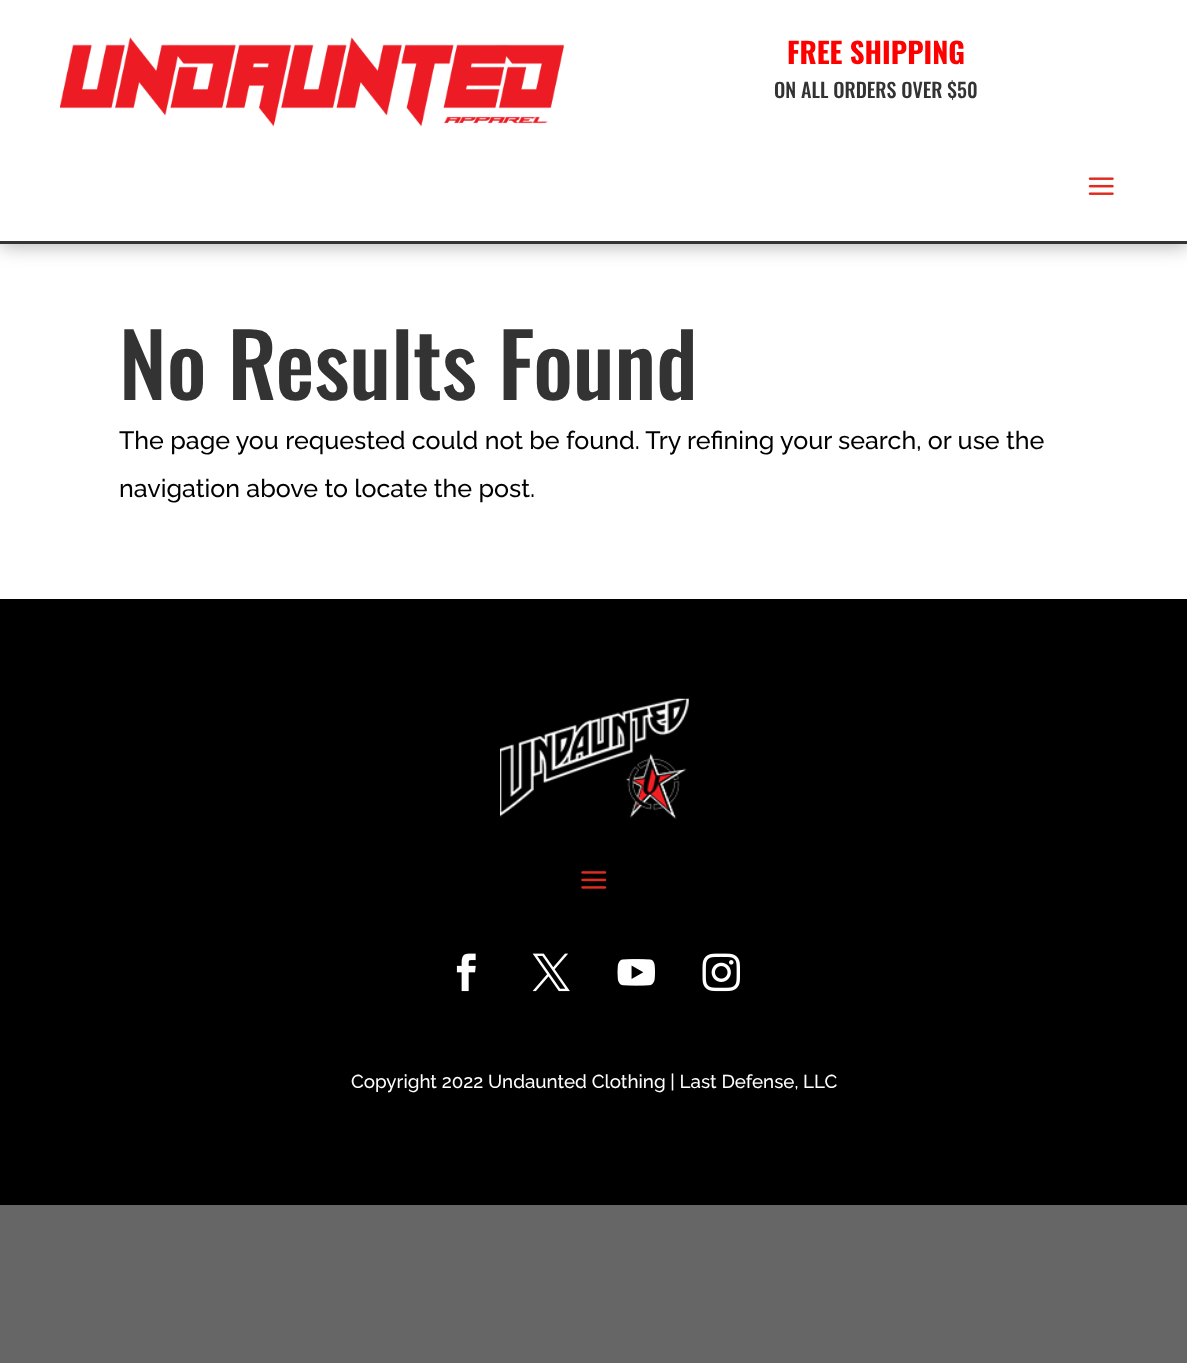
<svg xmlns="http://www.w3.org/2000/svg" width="1187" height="1363">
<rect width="100%" height="100%" fill="#666"/>
<rect y="244" width="1187" height="355" fill="#fff"/>
<rect y="3" width="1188" height="243" fill="#0000004d" filter="blur(9.5px)"/>
<rect width="1187" height="241" fill="#fff"/>
<rect y="241" width="1187" height="3" fill="#333"/>
<image x="60" y="37" width="504" height="90" href="media/1.png"/>
<text x="787" y="64" style="font-family:Oswald;font-size:28.75px;font-weight:bold;fill:#f00">FREE SHIPPING</text>
<text x="774" y="98" style="font-family:Oswald;font-size:20px;font-weight:500;fill:#333">ON ALL ORDERS OVER $50</text>
<image x="1088" y="177" width="26" height="18" href="media/2.png"/>
<text x="119" y="400" style="font-family:Oswald;font-size:87.5px;font-weight:500;fill:#333">No Results Found</text>
<text x="119" y="449" style="font-family:Raleway;font-size:25px;font-weight:100;fill:#000">The page you requested could not be found. Try refining your search, or use the</text>
<text x="119" y="497" style="font-family:Raleway;font-size:25px;font-weight:100;fill:#000">navigation above to locate the post.</text>
<rect y="599" width="1187" height="606" fill="#000"/>
<image x="500" y="698" width="189" height="122" href="media/3.png"/>
<image x="581" y="871" width="26" height="18" href="media/4.png"/>
<image x="456" y="953" width="20" height="39" href="media/5.png"/>
<image x="532" y="953" width="38" height="39" href="media/6.png"/>
<image x="617" y="959" width="38" height="27" href="media/7.png"/>
<image x="702" y="953" width="38" height="39" href="media/8.png"/>
<text x="351" y="1088" style="font-family:Raleway;font-size:18.75px;font-weight:100;fill:#fff">Copyright 2022 Undaunted Clothing | Last Defense, LLC</text>
</svg>
